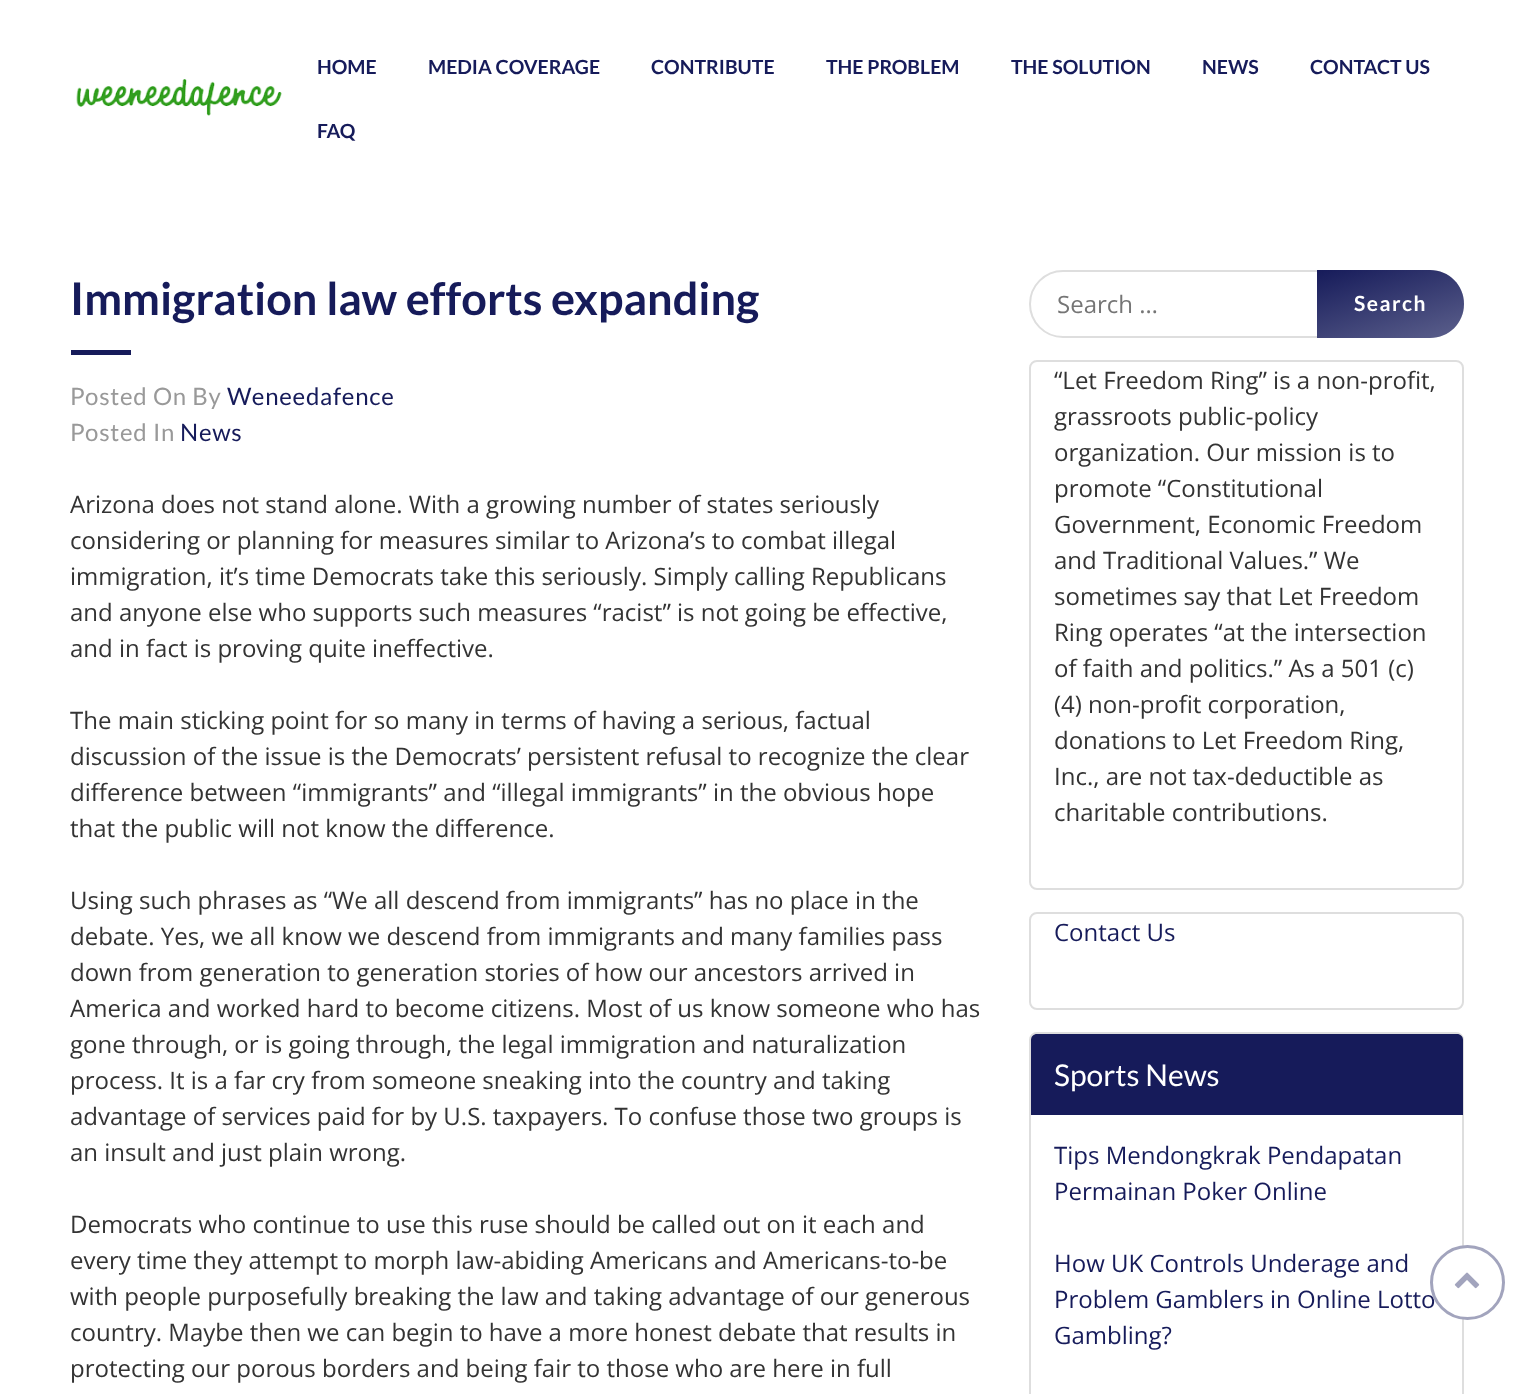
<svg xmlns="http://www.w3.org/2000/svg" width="1534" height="1394">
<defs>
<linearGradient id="g1" gradientUnits="userSpaceOnUse" x1="1374" y1="252" x2="1407" y2="356"><stop offset="0" stop-color="#161b5a"/><stop offset="1" stop-color="#5c608c"/></linearGradient>
</defs>
<rect width="100%" height="100%" fill="#fff"/>
<image x="76" y="79" width="206" height="37" href="media/1.png"/>
<text x="317" y="74" style="font-family:Lato;font-size:19.5px;font-weight:bold;fill:#161b5a">HOME</text>
<text x="428" y="74" style="font-family:Lato;font-size:19.5px;font-weight:bold;fill:#161b5a">MEDIA COVERAGE</text>
<text x="651" y="74" style="font-family:Lato;font-size:19.5px;font-weight:bold;fill:#161b5a">CONTRIBUTE</text>
<text x="826" y="74" style="font-family:Lato;font-size:19.5px;font-weight:bold;fill:#161b5a">THE PROBLEM</text>
<text x="1011" y="74" style="font-family:Lato;font-size:19.5px;font-weight:bold;fill:#161b5a">THE SOLUTION</text>
<text x="1202" y="74" style="font-family:Lato;font-size:19.5px;font-weight:bold;fill:#161b5a">NEWS</text>
<text x="1310" y="74" style="font-family:Lato;font-size:19.5px;font-weight:bold;fill:#161b5a">CONTACT US</text>
<text x="317" y="138" style="font-family:Lato;font-size:19.5px;font-weight:bold;fill:#161b5a">FAQ</text>
<text x="70" y="315" style="font-family:Lato;font-size:45px;font-weight:bold;fill:#161b5a">Immigration law efforts expanding</text>
<rect x="71" y="350" width="60" height="5" fill="#161b5a"/>
<text x="70" y="405" style="font-family:Lato;font-size:24px;letter-spacing:0.75px;fill:#999">Posted On By</text>
<text x="227" y="405" style="font-family:Lato;font-size:24px;letter-spacing:0.75px;fill:#161b5a">Weneedafence</text>
<text x="70" y="441" style="font-family:Lato;font-size:24px;letter-spacing:0.75px;fill:#999">Posted In</text>
<text x="180" y="441" style="font-family:Lato;font-size:24px;letter-spacing:0.75px;fill:#161b5a">News</text>
<text x="70" y="513" style="font-family:Open Sans;font-size:24px;fill:#333">Arizona does not stand alone. With a growing number of states seriously</text>
<text x="70" y="549" style="font-family:Open Sans;font-size:24px;fill:#333">considering or planning for measures similar to Arizona’s to combat illegal</text>
<text x="70" y="585" style="font-family:Open Sans;font-size:24px;fill:#333">immigration, it’s time Democrats take this seriously. Simply calling Republicans</text>
<text x="70" y="621" style="font-family:Open Sans;font-size:24px;fill:#333">and anyone else who supports such measures “racist” is not going be effective,</text>
<text x="70" y="657" style="font-family:Open Sans;font-size:24px;fill:#333">and in fact is proving quite ineffective.</text>
<text x="70" y="729" style="font-family:Open Sans;font-size:24px;fill:#333">The main sticking point for so many in terms of having a serious, factual</text>
<text x="70" y="765" style="font-family:Open Sans;font-size:24px;fill:#333">discussion of the issue is the Democrats’ persistent refusal to recognize the clear</text>
<text x="70" y="801" style="font-family:Open Sans;font-size:24px;fill:#333">difference between “immigrants” and “illegal immigrants” in the obvious hope</text>
<text x="70" y="837" style="font-family:Open Sans;font-size:24px;fill:#333">that the public will not know the difference.</text>
<text x="70" y="909" style="font-family:Open Sans;font-size:24px;fill:#333">Using such phrases as “We all descend from immigrants” has no place in the</text>
<text x="70" y="945" style="font-family:Open Sans;font-size:24px;fill:#333">debate. Yes, we all know we descend from immigrants and many families pass</text>
<text x="70" y="981" style="font-family:Open Sans;font-size:24px;fill:#333">down from generation to generation stories of how our ancestors arrived in</text>
<text x="70" y="1017" style="font-family:Open Sans;font-size:24px;fill:#333">America and worked hard to become citizens. Most of us know someone who has</text>
<text x="70" y="1053" style="font-family:Open Sans;font-size:24px;fill:#333">gone through, or is going through, the legal immigration and naturalization</text>
<text x="70" y="1089" style="font-family:Open Sans;font-size:24px;fill:#333">process. It is a far cry from someone sneaking into the country and taking</text>
<text x="70" y="1125" style="font-family:Open Sans;font-size:24px;fill:#333">advantage of services paid for by U.S. taxpayers. To confuse those two groups is</text>
<text x="70" y="1161" style="font-family:Open Sans;font-size:24px;fill:#333">an insult and just plain wrong.</text>
<text x="70" y="1233" style="font-family:Open Sans;font-size:24px;fill:#333">Democrats who continue to use this ruse should be called out on it each and</text>
<text x="70" y="1269" style="font-family:Open Sans;font-size:24px;fill:#333">every time they attempt to morph law-abiding Americans and Americans-to-be</text>
<text x="70" y="1305" style="font-family:Open Sans;font-size:24px;fill:#333">with people purposefully breaking the law and taking advantage of our generous</text>
<text x="70" y="1341" style="font-family:Open Sans;font-size:24px;fill:#333">country. Maybe then we can begin to have a more honest debate that results in</text>
<text x="70" y="1377" style="font-family:Open Sans;font-size:24px;fill:#333">protecting our porous borders and being fair to those who are here in full</text>
<rect x="1030" y="271" width="433" height="66" rx="33" fill="none" stroke="#dedede" stroke-width="2"/>
<text x="1057" y="313" style="font-family:Open Sans;font-size:24px;fill:#757575">Search …</text>
<path d="M1317 270h113c19 0 34 15 34 34c0 19-15 34-34 34h-113z" fill="url(#g1)"/>
<text x="1354" y="311" style="font-family:Lato;font-size:21px;font-weight:bold;letter-spacing:1.5px;fill:#fff">Search</text>
<rect x="1030" y="361" width="433" height="528" rx="7" fill="none" stroke="#dedede" stroke-width="2"/>
<text x="1054" y="389" style="font-family:Open Sans;font-size:24px;fill:#333">“Let Freedom Ring” is a non-profit,</text>
<text x="1054" y="425" style="font-family:Open Sans;font-size:24px;fill:#333">grassroots public-policy</text>
<text x="1054" y="461" style="font-family:Open Sans;font-size:24px;fill:#333">organization. Our mission is to</text>
<text x="1054" y="497" style="font-family:Open Sans;font-size:24px;fill:#333">promote “Constitutional</text>
<text x="1054" y="533" style="font-family:Open Sans;font-size:24px;fill:#333">Government, Economic Freedom</text>
<text x="1054" y="569" style="font-family:Open Sans;font-size:24px;fill:#333">and Traditional Values.” We</text>
<text x="1054" y="605" style="font-family:Open Sans;font-size:24px;fill:#333">sometimes say that Let Freedom</text>
<text x="1054" y="641" style="font-family:Open Sans;font-size:24px;fill:#333">Ring operates “at the intersection</text>
<text x="1054" y="677" style="font-family:Open Sans;font-size:24px;fill:#333">of faith and politics.” As a 501 (c)</text>
<text x="1054" y="713" style="font-family:Open Sans;font-size:24px;fill:#333">(4) non-profit corporation,</text>
<text x="1054" y="749" style="font-family:Open Sans;font-size:24px;fill:#333">donations to Let Freedom Ring,</text>
<text x="1054" y="785" style="font-family:Open Sans;font-size:24px;fill:#333">Inc., are not tax-deductible as</text>
<text x="1054" y="821" style="font-family:Open Sans;font-size:24px;fill:#333">charitable contributions.</text>
<rect x="1030" y="913" width="433" height="96" rx="7" fill="none" stroke="#dedede" stroke-width="2"/>
<text x="1054" y="941" style="font-family:Open Sans;font-size:24px;fill:#161b5a">Contact Us</text>
<rect x="1030" y="1033" width="433" height="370" rx="7" fill="none" stroke="#dedede" stroke-width="2"/>
<path d="M1037 1034h420c3.5 0 6 2.5 6 6v75h-432v-75c0-3.5 2.5-6 6-6z" fill="#161b5a"/>
<text x="1054" y="1086" style="font-family:Lato;font-size:30px;fill:#fff">Sports News</text>
<text x="1054" y="1164" style="font-family:Open Sans;font-size:24px;fill:#161b5a">Tips Mendongkrak Pendapatan</text>
<text x="1054" y="1200" style="font-family:Open Sans;font-size:24px;fill:#161b5a">Permainan Poker Online</text>
<text x="1054" y="1272" style="font-family:Open Sans;font-size:24px;fill:#161b5a">How UK Controls Underage and</text>
<text x="1054" y="1308" style="font-family:Open Sans;font-size:24px;fill:#161b5a">Problem Gamblers in Online Lotto</text>
<text x="1054" y="1344" style="font-family:Open Sans;font-size:24px;fill:#161b5a">Gambling?</text>
<circle cx="1467.5" cy="1282.5" r="36" fill="#fff" stroke="#a2a4bd" stroke-width="3"/>
<image x="1454" y="1272" width="26" height="17" href="media/2.png"/>
</svg>
